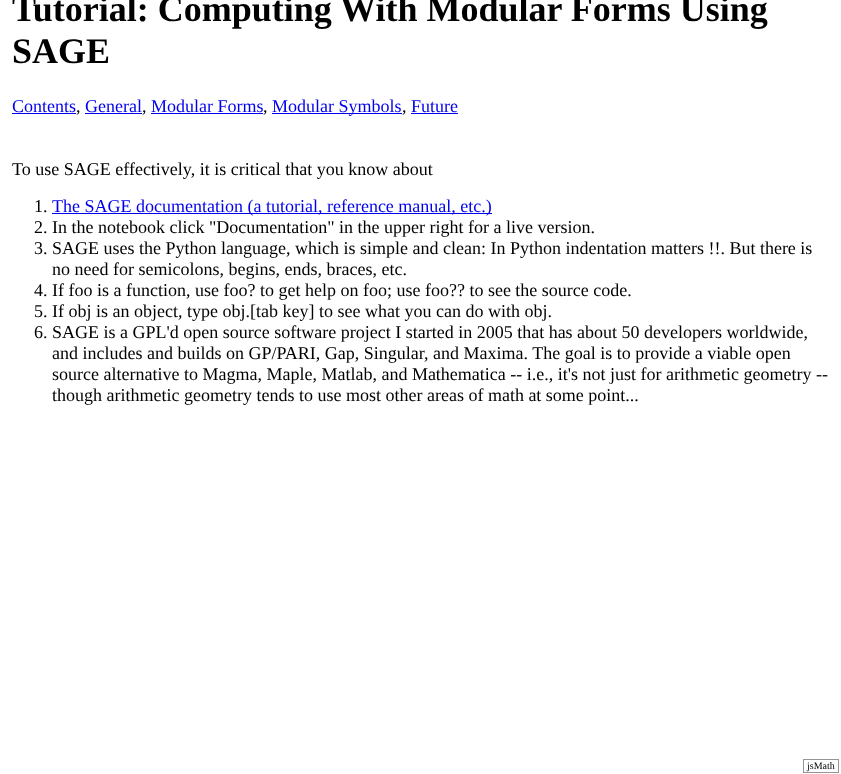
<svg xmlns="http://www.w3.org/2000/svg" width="841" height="774">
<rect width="100%" height="100%" fill="#fff"/>
<text x="12" y="21" style="font-family:Liberation Serif;font-size:36px;font-weight:bold;fill:#000">Tutorial: Computing With Modular Forms Using</text>
<text x="12" y="63" style="font-family:Liberation Serif;font-size:36px;font-weight:bold;fill:#000">SAGE</text>
<text x="12" y="112" style="font-family:Liberation Serif;font-size:18px;fill:#00e">Contents</text>
<rect x="12" y="113" width="64" height="1" fill="#00e"/>
<text x="76" y="112" style="font-family:Liberation Serif;font-size:18px;fill:#000">,</text>
<text x="85" y="112" style="font-family:Liberation Serif;font-size:18px;fill:#00e">General</text>
<rect x="85" y="113" width="57" height="1" fill="#00e"/>
<text x="142" y="112" style="font-family:Liberation Serif;font-size:18px;fill:#000">,</text>
<text x="151" y="112" style="font-family:Liberation Serif;font-size:18px;fill:#00e">Modular Forms</text>
<rect x="151" y="113" width="112" height="1" fill="#00e"/>
<text x="263" y="112" style="font-family:Liberation Serif;font-size:18px;fill:#000">,</text>
<rect x="272" y="113" width="130" height="1" fill="#00e"/>
<text x="272" y="112" style="font-family:Liberation Serif;font-size:18px;fill:#00e">Modular Symbols</text>
<text x="402" y="112" style="font-family:Liberation Serif;font-size:18px;fill:#000">,</text>
<text x="411" y="112" style="font-family:Liberation Serif;font-size:18px;fill:#00e">Future</text>
<rect x="411" y="113" width="47" height="1" fill="#00e"/>
<text x="12" y="175" style="font-family:Liberation Serif;font-size:18px;fill:#000">To use SAGE effectively, it is critical that you know about</text>
<text x="34" y="212" style="font-family:Liberation Serif;font-size:18px;fill:#000">1.</text>
<rect x="52" y="213" width="440" height="1" fill="#00e"/>
<text x="52" y="212" style="font-family:Liberation Serif;font-size:18px;fill:#00e">The SAGE documentation (a tutorial, reference manual, etc.)</text>
<text x="34" y="233" style="font-family:Liberation Serif;font-size:18px;fill:#000">2. In the notebook click "Documentation" in the upper right for a live version.</text>
<text x="34" y="254" style="font-family:Liberation Serif;font-size:18px;fill:#000">3. SAGE uses the Python language, which is simple and clean: In Python indentation matters !!. But there is</text>
<text x="52" y="275" style="font-family:Liberation Serif;font-size:18px;fill:#000">no need for semicolons, begins, ends, braces, etc.</text>
<text x="34" y="296" style="font-family:Liberation Serif;font-size:18px;fill:#000">4. If foo is a function, use foo? to get help on foo; use foo?? to see the source code.</text>
<text x="34" y="317" style="font-family:Liberation Serif;font-size:18px;fill:#000">5. If obj is an object, type obj.[tab key] to see what you can do with obj.</text>
<text x="34" y="338" style="font-family:Liberation Serif;font-size:18px;fill:#000">6. SAGE is a GPL'd open source software project I started in 2005 that has about 50 developers worldwide,</text>
<text x="52" y="359" style="font-family:Liberation Serif;font-size:18px;fill:#000">and includes and builds on GP/PARI, Gap, Singular, and Maxima. The goal is to provide a viable open</text>
<text x="52" y="380" style="font-family:Liberation Serif;font-size:18px;fill:#000">source alternative to Magma, Maple, Matlab, and Mathematica -- i.e., it's not just for arithmetic geometry --</text>
<text x="52" y="401" style="font-family:Liberation Serif;font-size:18px;fill:#000">though arithmetic geometry tends to use most other areas of math at some point...</text>
<rect x="803.5" y="759.5" width="35" height="13" fill="none" stroke="#959595"/>
<text x="807" y="769" style="font-family:Liberation Serif;font-size:10px;fill:#000">jsMath</text>
</svg>
